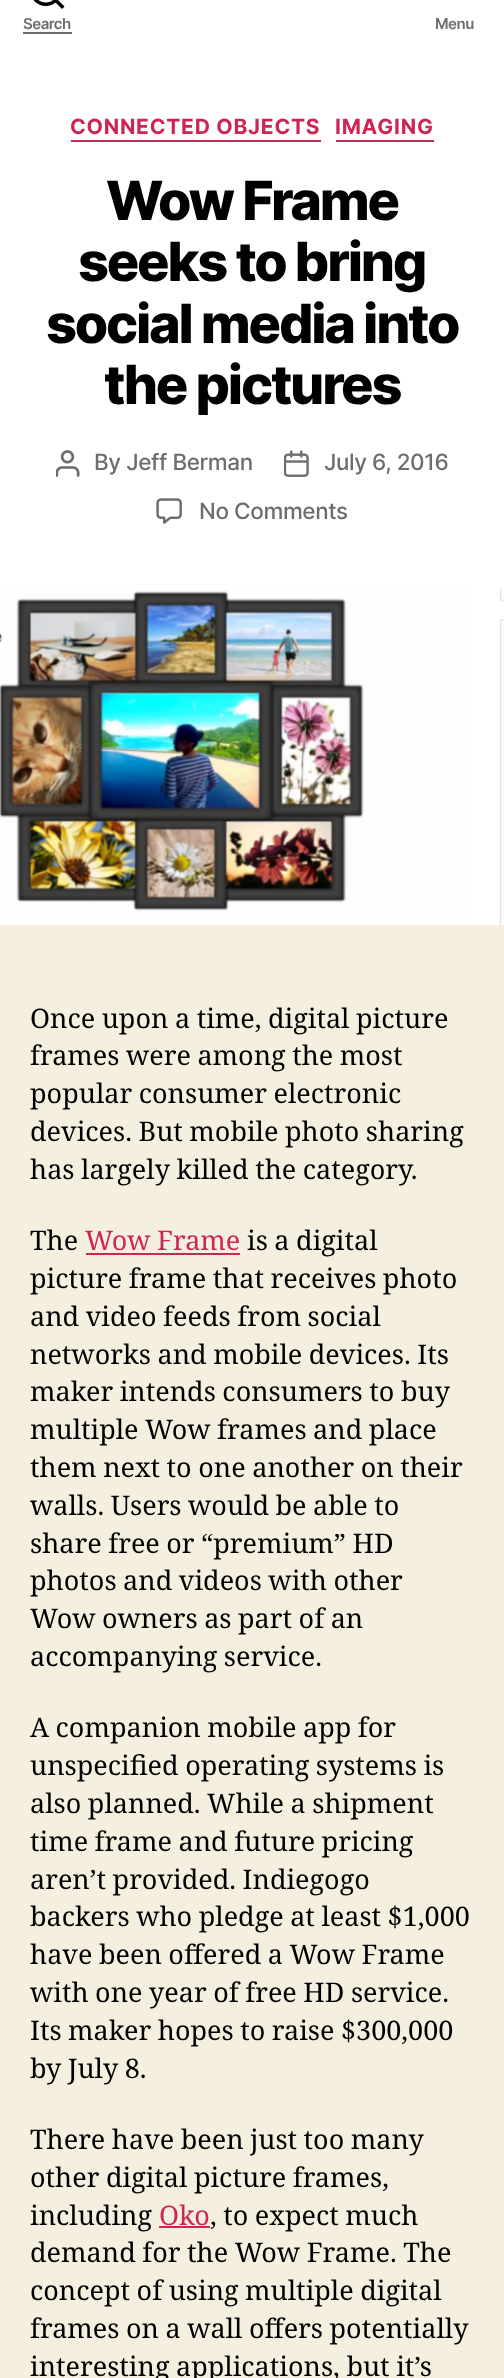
<svg xmlns="http://www.w3.org/2000/svg" width="504" height="2378">
<rect width="100%" height="100%" fill="#f5efe0"/>
<rect width="504" height="589" fill="#fff"/>
<image x="33" y="0" width="32" height="9" href="media/1.png"/>
<text x="23" y="29" style="font-family:Inter;font-size:15px;font-weight:600;letter-spacing:-0.5px;fill:#6d6d6d">Search</text>
<rect x="23" y="32" width="49" height="2" fill="#6d6d6d"/>
<text x="435" y="29" style="font-family:Inter;font-size:15px;font-weight:600;letter-spacing:-0.5px;fill:#6d6d6d">Menu</text>
<rect x="71" y="140" width="250" height="2" fill="#cd2653"/>
<text x="70" y="134" style="font-family:Inter;font-size:21px;font-weight:bold;letter-spacing:0.75px;fill:#cd2653">CONNECTED OBJECTS</text>
<rect x="336" y="140" width="98" height="2" fill="#cd2653"/>
<text x="335" y="134" style="font-family:Inter;font-size:21px;font-weight:bold;letter-spacing:0.75px;fill:#cd2653">IMAGING</text>
<text x="106" y="220" style="font-family:Inter;font-size:54px;font-weight:800;letter-spacing:-2.25px;fill:#000">Wow Frame</text>
<text x="78" y="281" style="font-family:Inter;font-size:54px;font-weight:800;letter-spacing:-2.25px;fill:#000">seeks to bring</text>
<text x="46" y="343" style="font-family:Inter;font-size:54px;font-weight:800;letter-spacing:-2.25px;fill:#000">social media into</text>
<text x="104" y="404" style="font-family:Inter;font-size:54px;font-weight:800;letter-spacing:-2.25px;fill:#000">the pictures</text>
<image x="56" y="450" width="24" height="27" href="media/2.png"/>
<text x="94" y="470" style="font-family:Inter;font-size:22.5px;font-weight:500;letter-spacing:-0.4px;fill:#6d6d6d">By Jeff Berman</text>
<image x="284" y="450" width="25" height="27" href="media/3.png"/>
<text x="324" y="470" style="font-family:Inter;font-size:22.5px;font-weight:500;letter-spacing:-0.4px;fill:#6d6d6d">July 6, 2016</text>
<image x="156" y="498" width="26" height="26" href="media/4.png"/>
<text x="199" y="519" style="font-family:Inter;font-size:22.5px;font-weight:500;letter-spacing:-0.4px;fill:#6d6d6d">No Comments</text>
<image x="0" y="589" width="504" height="336" href="media/5.png"/>
<text x="30" y="1028" word-spacing="-0.5" style="font-family:Noto Serif;font-size:27px;fill:#000">Once upon a time, digital picture</text>
<text x="30" y="1065" word-spacing="-0.5" style="font-family:Noto Serif;font-size:27px;fill:#000">frames were among the most</text>
<text x="30" y="1103" word-spacing="-0.5" style="font-family:Noto Serif;font-size:27px;fill:#000">popular consumer electronic</text>
<text x="30" y="1141" word-spacing="-0.5" style="font-family:Noto Serif;font-size:27px;fill:#000">devices. But mobile photo sharing</text>
<text x="30" y="1179" word-spacing="-0.5" style="font-family:Noto Serif;font-size:27px;fill:#000">has largely killed the category.</text>
<text x="30" y="1250" style="font-family:Noto Serif;font-size:27px;fill:#000">The</text>
<text x="85" y="1250" word-spacing="-0.5" style="font-family:Noto Serif;font-size:27px;fill:#cd2653">Wow Frame</text>
<rect x="86" y="1253" width="154" height="2" fill="#cd2653"/>
<text x="247" y="1250" word-spacing="-0.5" style="font-family:Noto Serif;font-size:27px;fill:#000">is a digital</text>
<text x="30" y="1288" word-spacing="-0.5" style="font-family:Noto Serif;font-size:27px;fill:#000">picture frame that receives photo</text>
<text x="30" y="1326" word-spacing="-0.5" style="font-family:Noto Serif;font-size:27px;fill:#000">and video feeds from social</text>
<text x="30" y="1364" word-spacing="-0.5" style="font-family:Noto Serif;font-size:27px;fill:#000">networks and mobile devices. Its</text>
<text x="30" y="1401" word-spacing="-0.5" style="font-family:Noto Serif;font-size:27px;fill:#000">maker intends consumers to buy</text>
<text x="30" y="1439" word-spacing="-0.5" style="font-family:Noto Serif;font-size:27px;fill:#000">multiple Wow frames and place</text>
<text x="30" y="1477" word-spacing="-0.5" style="font-family:Noto Serif;font-size:27px;fill:#000">them next to one another on their</text>
<text x="30" y="1515" word-spacing="-0.5" style="font-family:Noto Serif;font-size:27px;fill:#000">walls. Users would be able to</text>
<text x="30" y="1553" word-spacing="-0.5" style="font-family:Noto Serif;font-size:27px;fill:#000">share free or “premium” HD</text>
<text x="30" y="1590" word-spacing="-0.5" style="font-family:Noto Serif;font-size:27px;fill:#000">photos and videos with other</text>
<text x="30" y="1628" word-spacing="-0.5" style="font-family:Noto Serif;font-size:27px;fill:#000">Wow owners as part of an</text>
<text x="30" y="1666" word-spacing="-0.5" style="font-family:Noto Serif;font-size:27px;fill:#000">accompanying service.</text>
<text x="30" y="1737" word-spacing="-0.5" style="font-family:Noto Serif;font-size:27px;fill:#000">A companion mobile app for</text>
<text x="30" y="1775" word-spacing="-0.5" style="font-family:Noto Serif;font-size:27px;fill:#000">unspecified operating systems is</text>
<text x="30" y="1813" word-spacing="-0.5" style="font-family:Noto Serif;font-size:27px;fill:#000">also planned. While a shipment</text>
<text x="30" y="1851" word-spacing="-0.5" style="font-family:Noto Serif;font-size:27px;fill:#000">time frame and future pricing</text>
<text x="30" y="1889" word-spacing="-0.5" style="font-family:Noto Serif;font-size:27px;fill:#000">aren’t provided. Indiegogo</text>
<text x="30" y="1926" word-spacing="-0.5" style="font-family:Noto Serif;font-size:27px;fill:#000">backers who pledge at least $1,000</text>
<text x="30" y="1964" word-spacing="-0.5" style="font-family:Noto Serif;font-size:27px;fill:#000">have been offered a Wow Frame</text>
<text x="30" y="2002" word-spacing="-0.5" style="font-family:Noto Serif;font-size:27px;fill:#000">with one year of free HD service.</text>
<text x="30" y="2040" word-spacing="-0.5" style="font-family:Noto Serif;font-size:27px;fill:#000">Its maker hopes to raise $300,000</text>
<text x="30" y="2078" word-spacing="-0.5" style="font-family:Noto Serif;font-size:27px;fill:#000">by July 8.</text>
<text x="30" y="2149" word-spacing="-0.5" style="font-family:Noto Serif;font-size:27px;fill:#000">There have been just too many</text>
<text x="30" y="2187" word-spacing="-0.5" style="font-family:Noto Serif;font-size:27px;fill:#000">other digital picture frames,</text>
<text x="30" y="2225" style="font-family:Noto Serif;font-size:27px;fill:#000">including</text>
<text x="159" y="2225" style="font-family:Noto Serif;font-size:27px;fill:#cd2653">Oko</text>
<rect x="159" y="2226" width="51" height="2" fill="#cd2653"/>
<text x="210" y="2225" word-spacing="-0.5" style="font-family:Noto Serif;font-size:27px;fill:#000">, to expect much</text>
<text x="30" y="2262" word-spacing="-0.5" style="font-family:Noto Serif;font-size:27px;fill:#000">demand for the Wow Frame. The</text>
<text x="30" y="2300" word-spacing="-0.5" style="font-family:Noto Serif;font-size:27px;fill:#000">concept of using multiple digital</text>
<text x="30" y="2338" word-spacing="-0.5" style="font-family:Noto Serif;font-size:27px;fill:#000">frames on a wall offers potentially</text>
<text x="30" y="2376" word-spacing="-0.5" style="font-family:Noto Serif;font-size:27px;fill:#000">interesting applications, but it’s</text>
</svg>
